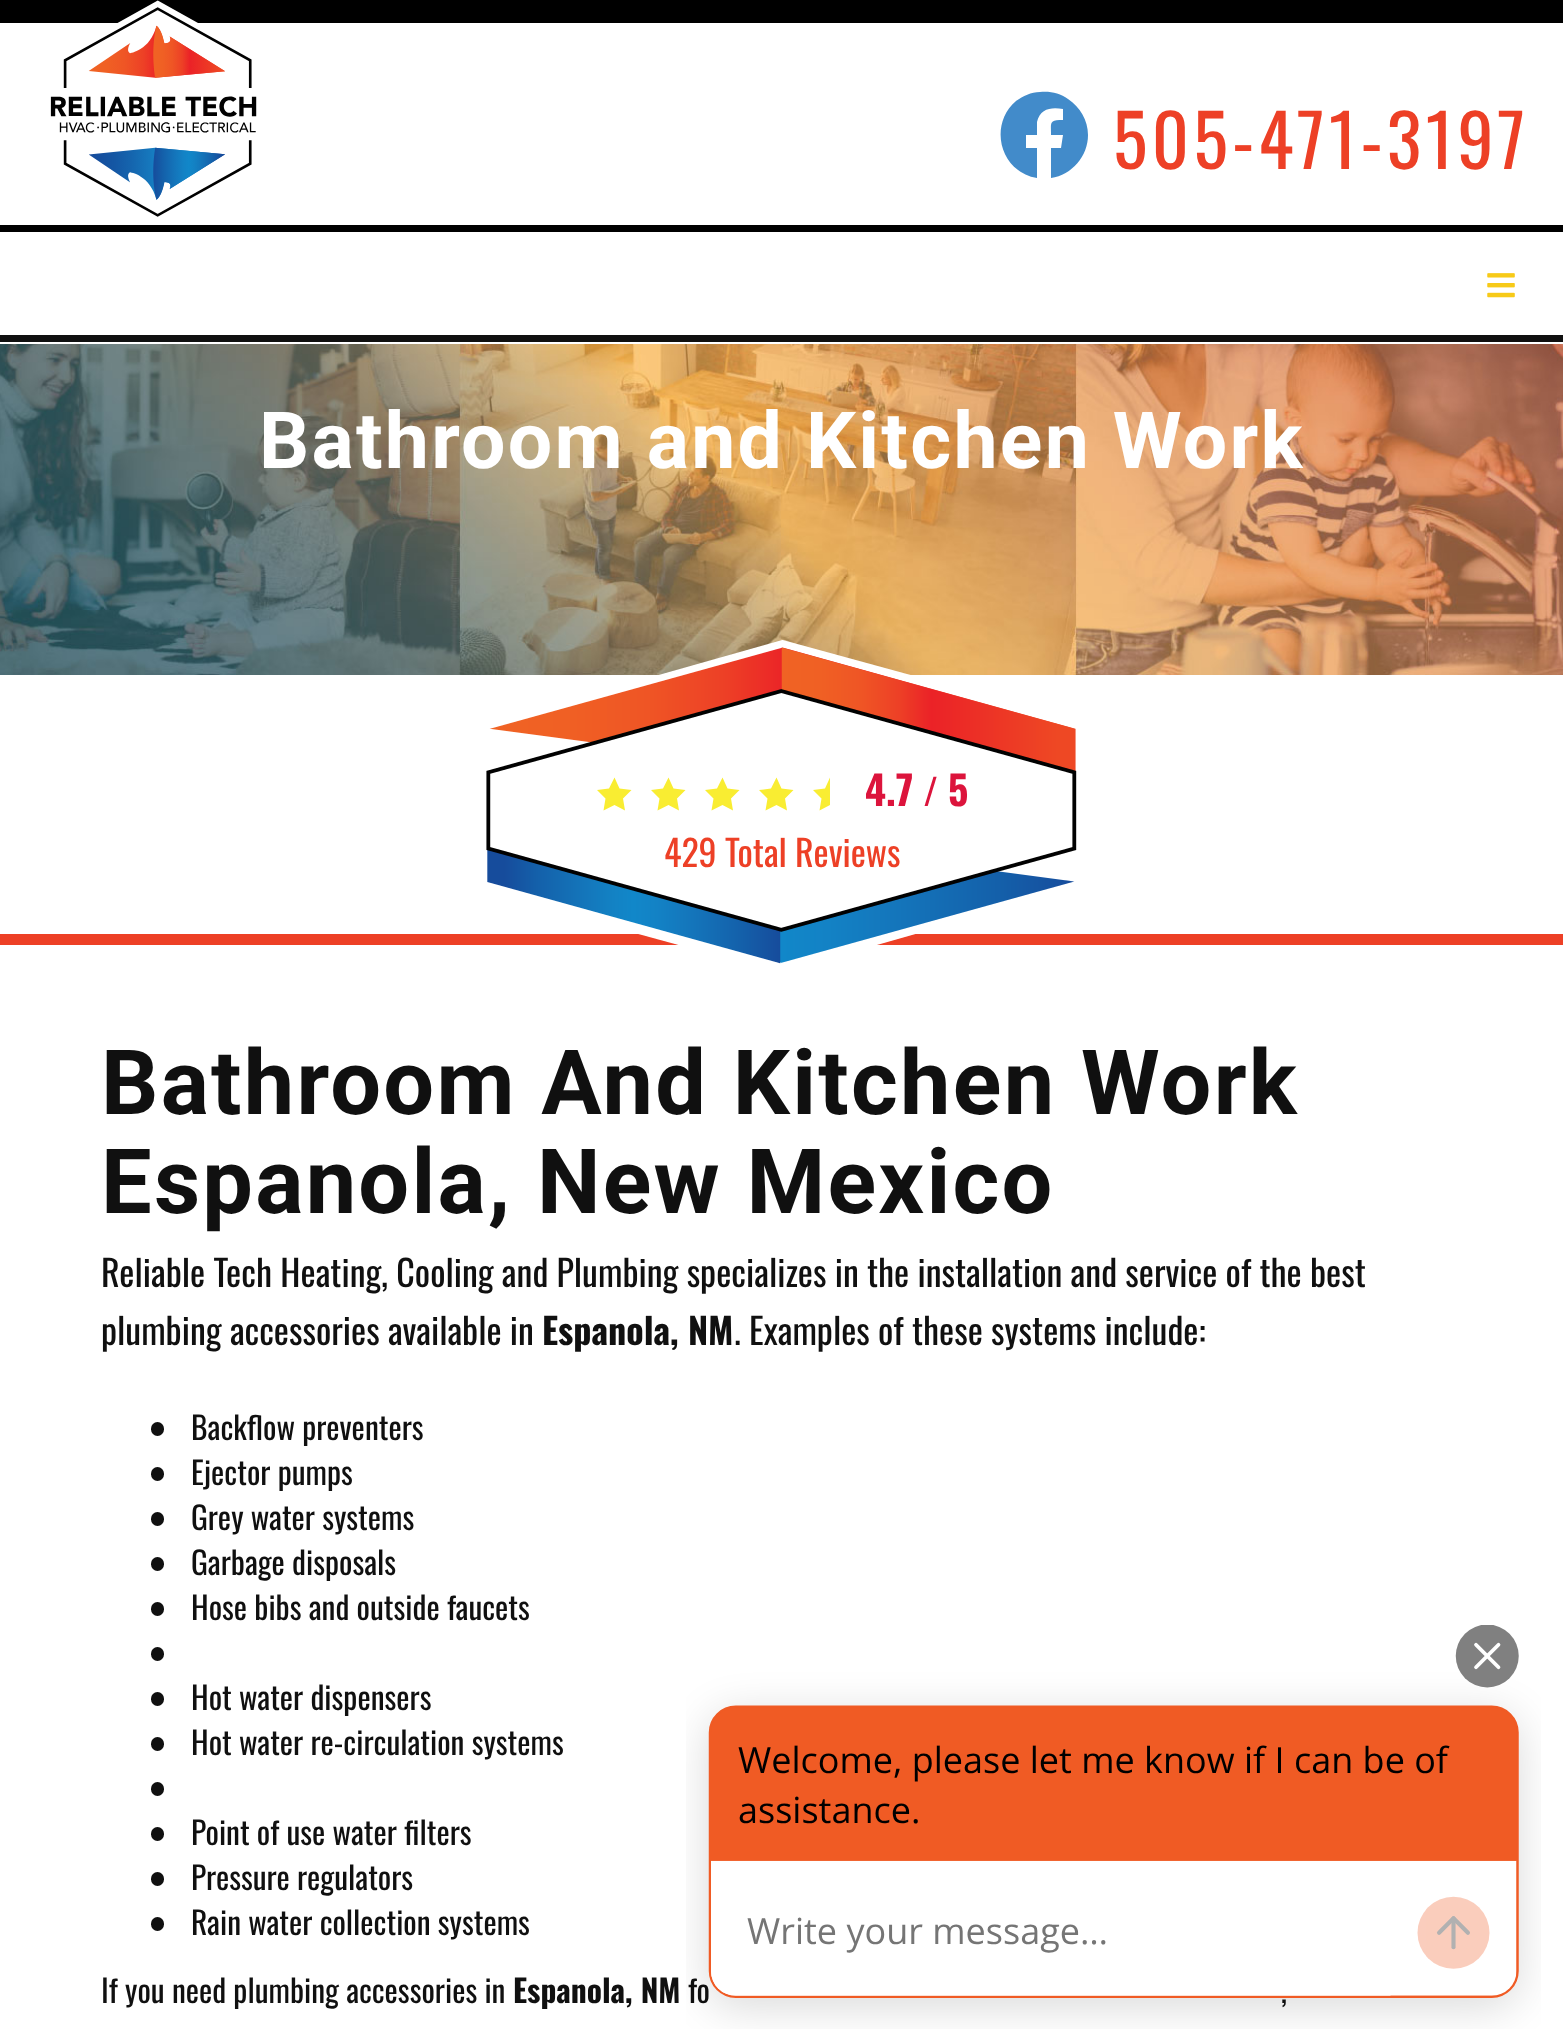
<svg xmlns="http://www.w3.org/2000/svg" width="1563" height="2041">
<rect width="100%" height="100%" fill="#fff"/>
<rect width="1563" height="23" fill="#000"/>
<image x="50" y="0" width="207" height="217" href="media/1.png"/>
<image x="1487" y="273" width="28" height="25" href="media/2.png"/>
<path d="M1088 135c0 21-16 40-37 43v-30h10l2-13h-12c0-13-2-15 12-15v-11c-11-2-23-1-26 13v13h-11v13h11v30c-37-6-49-53-21-77c7-5 15-9 24-9c10-1 20 1 28 7c12 8 20 21 20 36z" fill="#428bca"/>
<text x="1113" y="169" style="font-family:Oswald;font-size:72px;letter-spacing:4.5px;fill:#ed4026">505-471-3197</text>
<rect y="225" width="1563" height="7" fill="#000"/>
<rect y="335" width="1563" height="7" fill="#101010"/>
<image x="0" y="344" width="1563" height="331" href="media/3.png"/>
<text x="259" y="468" style="font-family:Roboto;font-size:78.75px;font-weight:bold;letter-spacing:2.25px;fill:#fff">Bathroom and Kitchen Work</text>
<rect y="934" width="1563" height="11" fill="#ed4026"/>
<image x="486" y="640" width="591" height="324" href="media/4.png"/>
<path d="M614.5 777.5l5 11l12 1.5l-8.5 8.5l2 12l-10.5-5.5l-11 5.5l2-12l-8.5-8.5l12-1.5z" fill="#f9ed32"/>
<path d="M668.5 777.5l5 11l12 1.5l-8.5 8.5l2 12l-10.5-5.5l-11 5.5l2-12l-8.5-8.5l12-1.5z" fill="#f9ed32"/>
<path d="M722.5 777.5l5 11l12 1.5l-8.5 8.5l2 12l-10.5-5.5l-11 5.5l2-12l-8.5-8.5l12-1.5z" fill="#f9ed32"/>
<path d="M776.5 777.5l5 11l12 1.5l-8.5 8.5l2 12l-10.5-5.5l-11 5.5l2-12l-8.5-8.5l12-1.5z" fill="#f9ed32"/>
<path d="M825 788.5l-12 1.5l8.5 8.5l-2 12l10.5-5.5v-27.5z" fill="#f9ed32"/>
<text x="865" y="806" style="font-family:Oswald;font-size:40px;font-weight:bold;fill:#dc143c">4.7</text>
<text x="923" y="806" style="font-family:Oswald;font-size:36px;font-weight:bold;fill:#dc143c">/</text>
<text x="948" y="806" style="font-family:Oswald;font-size:40px;font-weight:bold;fill:#dc143c">5</text>
<text x="664" y="867" style="font-family:Oswald;font-size:36px;fill:#ed4026">429 Total Reviews</text>
<text x="101" y="1114" style="font-family:Roboto;font-size:90px;font-weight:bold;letter-spacing:2.25px;fill:#101010">Bathroom And Kitchen Work</text>
<text x="101" y="1213" style="font-family:Roboto;font-size:90px;font-weight:bold;letter-spacing:2.25px;fill:#101010">Espanola, New Mexico</text>
<text x="101" y="1287" style="font-family:Oswald;font-size:36px;fill:#101010">Reliable Tech Heating, Cooling and Plumbing specializes in the installation and service of the best</text>
<text x="101" y="1345" style="font-family:Oswald;font-size:36px;fill:#101010">plumbing accessories available in</text>
<text x="542" y="1345" style="font-family:Oswald;font-size:36px;font-weight:bold;fill:#101010">Espanola, NM</text>
<text x="734" y="1345" style="font-family:Oswald;font-size:36px;fill:#101010">. Examples of these systems include:</text>
<rect x="151" y="1422" width="13" height="14" rx="6.5" fill="#101010"/>
<text x="191" y="1440" style="font-family:Oswald;font-size:31.5px;fill:#101010">Backflow preventers</text>
<rect x="151" y="1467" width="13" height="14" rx="6.5" fill="#101010"/>
<text x="191" y="1485" style="font-family:Oswald;font-size:31.5px;fill:#101010">Ejector pumps</text>
<rect x="151" y="1512" width="13" height="14" rx="6.5" fill="#101010"/>
<text x="191" y="1530" style="font-family:Oswald;font-size:31.5px;fill:#101010">Grey water systems</text>
<rect x="151" y="1557" width="13" height="14" rx="6.5" fill="#101010"/>
<text x="191" y="1575" style="font-family:Oswald;font-size:31.5px;fill:#101010">Garbage disposals</text>
<rect x="151" y="1602" width="13" height="14" rx="6.5" fill="#101010"/>
<text x="191" y="1620" style="font-family:Oswald;font-size:31.5px;fill:#101010">Hose bibs and outside faucets</text>
<rect x="151" y="1647" width="13" height="14" rx="6.5" fill="#101010"/>
<rect x="151" y="1692" width="13" height="14" rx="6.5" fill="#101010"/>
<text x="191" y="1710" style="font-family:Oswald;font-size:31.5px;fill:#101010">Hot water dispensers</text>
<rect x="151" y="1737" width="13" height="14" rx="6.5" fill="#101010"/>
<text x="191" y="1755" style="font-family:Oswald;font-size:31.5px;fill:#101010">Hot water re-circulation systems</text>
<rect x="151" y="1782" width="13" height="14" rx="6.5" fill="#101010"/>
<rect x="151" y="1827" width="13" height="14" rx="6.5" fill="#101010"/>
<text x="191" y="1845" style="font-family:Oswald;font-size:31.5px;fill:#101010">Point of use water filters</text>
<rect x="151" y="1872" width="13" height="14" rx="6.5" fill="#101010"/>
<text x="191" y="1890" style="font-family:Oswald;font-size:31.5px;fill:#101010">Pressure regulators</text>
<rect x="151" y="1917" width="13" height="14" rx="6.5" fill="#101010"/>
<text x="191" y="1935" style="font-family:Oswald;font-size:31.5px;fill:#101010">Rain water collection systems</text>
<text x="101" y="2003" style="font-family:Oswald;font-size:31.5px;fill:#101010">If you need plumbing accessories in</text>
<text x="513" y="2003" style="font-family:Oswald;font-size:31.5px;font-weight:bold;fill:#101010">Espanola, NM</text>
<text x="688" y="2003" style="font-family:Oswald;font-size:31.5px;fill:#101010">fo</text>
<text x="1281" y="2003" style="font-family:Oswald;font-size:31.5px;fill:#101010">,</text>
<image x="686" y="1625" width="855" height="404" href="media/5.png"/>
</svg>
